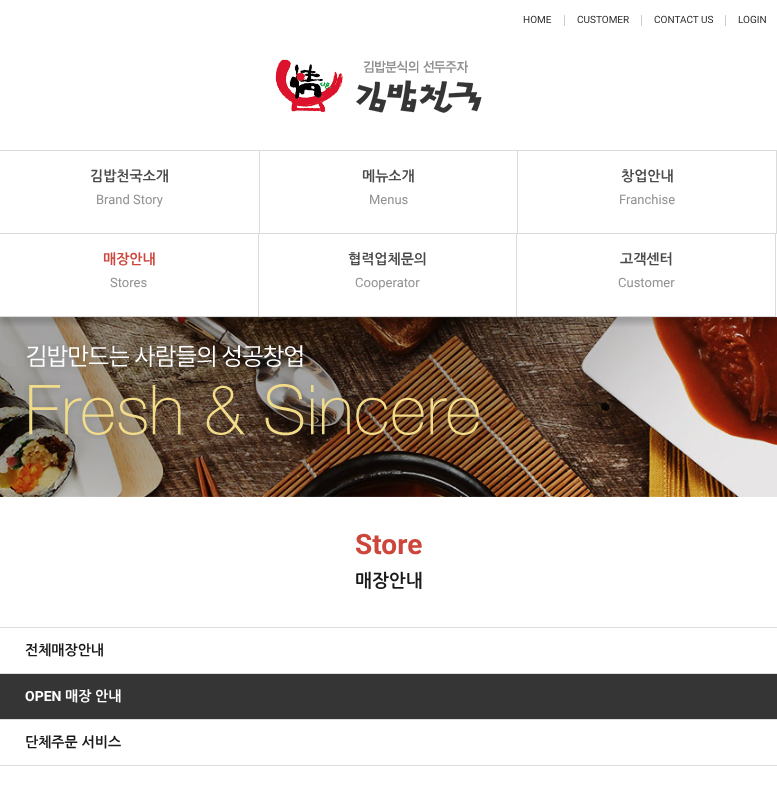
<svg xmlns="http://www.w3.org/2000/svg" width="777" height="796">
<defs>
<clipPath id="clip1"><rect x="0" y="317" width="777" height="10"/></clipPath>
</defs>
<rect width="100%" height="100%" fill="#fff"/>
<image x="0" y="317" width="777" height="180" href="media/2.png"/>
<g clip-path="url(#clip1)">
<rect y="6" width="777" height="317" fill="#0000002e" filter="blur(3px)"/>
</g>
<text x="523" y="23" style="font-family:Roboto;font-size:10px;fill:#2c2c2c">HOME</text>
<rect x="564" y="15" width="1" height="11" fill="#ccc"/>
<text x="577" y="23" style="font-family:Roboto;font-size:10px;fill:#2c2c2c">CUSTOMER</text>
<rect x="641" y="15" width="1" height="11" fill="#ccc"/>
<text x="654" y="23" style="font-family:Roboto;font-size:10px;fill:#2c2c2c">CONTACT US</text>
<rect x="725" y="15" width="1" height="11" fill="#ccc"/>
<text x="738" y="23" style="font-family:Roboto;font-size:10px;fill:#2c2c2c">LOGIN</text>
<image x="275" y="59" width="207" height="54" href="media/1.png"/>
<rect y="150" width="777" height="1" fill="#dbdbdb"/>
<rect x="259" y="151" width="1" height="83" fill="#dbdbdb"/>
<rect y="233" width="260" height="1" fill="#dbdbdb"/>
<text x="90" y="181" style="font-family:NanumGothic;font-size:14px;font-weight:bold;fill:#4b4b4b">김밥천국소개</text>
<text x="96" y="204" style="font-family:Roboto;font-size:13px;fill:#919191">Brand Story</text>
<rect x="517" y="151" width="1" height="83" fill="#dbdbdb"/>
<rect x="260" y="233" width="258" height="1" fill="#dbdbdb"/>
<text x="362" y="181" style="font-family:NanumGothic;font-size:14px;font-weight:bold;fill:#4b4b4b">메뉴소개</text>
<text x="369" y="204" style="font-family:Roboto;font-size:13px;fill:#919191">Menus</text>
<rect x="776" y="151" width="1" height="83" fill="#dbdbdb"/>
<rect x="518" y="233" width="259" height="1" fill="#dbdbdb"/>
<text x="621" y="181" style="font-family:NanumGothic;font-size:14px;font-weight:bold;fill:#4b4b4b">창업안내</text>
<text x="619" y="204" style="font-family:Roboto;font-size:13px;fill:#919191">Franchise</text>
<rect x="258" y="234" width="1" height="83" fill="#dbdbdb"/>
<rect y="316" width="259" height="1" fill="#dbdbdb"/>
<text x="103" y="264" style="font-family:NanumGothic;font-size:14px;font-weight:bold;fill:#cd463b">매장안내</text>
<text x="110" y="287" style="font-family:Roboto;font-size:13px;fill:#919191">Stores</text>
<rect x="516" y="234" width="1" height="83" fill="#dbdbdb"/>
<rect x="259" y="316" width="258" height="1" fill="#dbdbdb"/>
<text x="348" y="264" style="font-family:NanumGothic;font-size:14px;font-weight:bold;fill:#4b4b4b">협력업체문의</text>
<text x="355" y="287" style="font-family:Roboto;font-size:13px;fill:#919191">Cooperator</text>
<rect x="775" y="234" width="1" height="83" fill="#dbdbdb"/>
<rect x="517" y="316" width="259" height="1" fill="#dbdbdb"/>
<text x="620" y="264" style="font-family:NanumGothic;font-size:14px;font-weight:bold;fill:#4b4b4b">고객센터</text>
<text x="618" y="287" style="font-family:Roboto;font-size:13px;fill:#919191">Customer</text>
<image x="24" y="344" width="459" height="95" href="media/3.png"/>
<text x="355" y="554" style="font-family:Roboto;font-size:28px;font-weight:bold;fill:#cd463b">Store</text>
<text x="355" y="587" style="font-family:NanumGothic;font-size:18px;font-weight:bold;fill:#1a1a1a">매장안내</text>
<rect y="627" width="777" height="1" fill="#ddd"/>
<rect y="673" width="777" height="1" fill="#ddd"/>
<text x="25" y="655" style="font-family:NanumGothic;font-size:14px;font-weight:bold;fill:#1a1a1a">전체매장안내</text>
<rect y="674" width="777" height="45" fill="#353535"/>
<rect y="719" width="777" height="1" fill="#ddd"/>
<text x="25" y="701" style="font-family:Roboto;font-size:14px;font-weight:bold;fill:#fff">OPEN</text>
<text x="65" y="701" style="font-family:NanumGothic;font-size:14px;font-weight:bold;fill:#fff">매장</text>
<text x="95" y="701" style="font-family:NanumGothic;font-size:14px;font-weight:bold;fill:#fff">안내</text>
<rect y="765" width="777" height="1" fill="#ddd"/>
<text x="25" y="747" style="font-family:NanumGothic;font-size:14px;font-weight:bold;fill:#1a1a1a">단체주문 서비스</text>
</svg>
